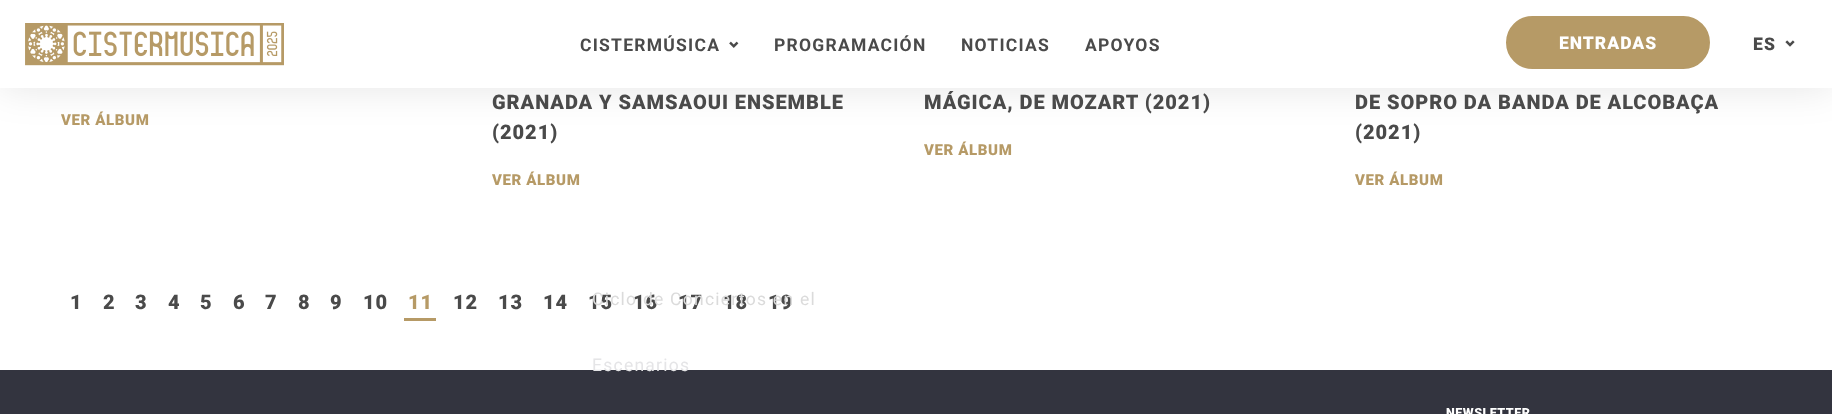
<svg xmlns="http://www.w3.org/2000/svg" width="1832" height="414">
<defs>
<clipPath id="clip1"><path d="M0 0h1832v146h-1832zm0 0h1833v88h-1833z" clip-rule="evenodd"/></clipPath>
</defs>
<rect width="100%" height="100%" fill="#fff"/>
<g clip-path="url(#clip1)">
<rect width="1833" height="88" fill="#0000001a" filter="blur(19px)"/>
</g>
<image x="25" y="23" width="259" height="43" href="media/1.png"/>
<text x="580" y="51" style="font-family:Roboto;font-size:17.5px;font-weight:bold;letter-spacing:1.25px;fill:#4a4a4a">CISTERMÚSICA</text>
<image x="729" y="41" width="10" height="7" href="media/2.png"/>
<text x="588" y="309" style="font-family:Roboto;font-size:20px;font-weight:900;letter-spacing:0.95px;fill:#4a4a4a">15</text>
<text x="633" y="309" style="font-family:Roboto;font-size:20px;font-weight:900;letter-spacing:0.95px;fill:#4a4a4a">16</text>
<text x="678" y="309" style="font-family:Roboto;font-size:20px;font-weight:900;letter-spacing:0.95px;fill:#4a4a4a">17</text>
<text x="723" y="309" style="font-family:Roboto;font-size:20px;font-weight:900;letter-spacing:0.95px;fill:#4a4a4a">18</text>
<text x="768" y="309" style="font-family:Roboto;font-size:20px;font-weight:900;letter-spacing:0.95px;fill:#4a4a4a">19</text>
<text x="592" y="305" style="font-family:Roboto;font-size:17.5px;letter-spacing:1.25px;fill:#dbdbdb">Ciclo de Conciertos en el</text>
<rect y="370" width="1832" height="44" fill="#33343f"/>
<text x="592" y="371" style="font-family:Roboto;font-size:17.5px;letter-spacing:1.25px;fill:#e5e5e7">Escenarios</text>
<text x="774" y="51" style="font-family:Roboto;font-size:17.5px;font-weight:bold;letter-spacing:1.25px;fill:#4a4a4a">PROGRAMACIÓN</text>
<text x="961" y="51" style="font-family:Roboto;font-size:17.5px;font-weight:bold;letter-spacing:1.25px;fill:#4a4a4a">NOTICIAS</text>
<text x="1085" y="51" style="font-family:Roboto;font-size:17.5px;font-weight:bold;letter-spacing:1.25px;fill:#4a4a4a">APOYOS</text>
<rect x="1507.5" y="17.5" width="201" height="50" rx="25" fill="#b69a66" stroke="#b69a66" stroke-width="3"/>
<text x="1559" y="49" style="font-family:Roboto;font-size:17.5px;font-weight:900;letter-spacing:1px;fill:#fff">ENTRADAS</text>
<text x="1753" y="50" style="font-family:Roboto;font-size:17.5px;font-weight:900;letter-spacing:1.25px;fill:#4a4a4a">ES</text>
<image x="1785" y="40" width="10" height="7" href="media/3.png"/>
<text x="61" y="125" style="font-family:Roboto;font-size:15px;font-weight:900;letter-spacing:0.6px;fill:#b69a66">VER ÁLBUM</text>
<text x="492" y="109" style="font-family:Roboto;font-size:20px;font-weight:900;letter-spacing:0.95px;fill:#4a4a4a">GRANADA Y SAMSAOUI ENSEMBLE</text>
<text x="492" y="139" style="font-family:Roboto;font-size:20px;font-weight:900;letter-spacing:0.95px;fill:#4a4a4a">(2021)</text>
<text x="492" y="185" style="font-family:Roboto;font-size:15px;font-weight:900;letter-spacing:0.6px;fill:#b69a66">VER ÁLBUM</text>
<text x="924" y="109" style="font-family:Roboto;font-size:20px;font-weight:900;letter-spacing:0.95px;fill:#4a4a4a">MÁGICA, DE MOZART (2021)</text>
<text x="924" y="155" style="font-family:Roboto;font-size:15px;font-weight:900;letter-spacing:0.6px;fill:#b69a66">VER ÁLBUM</text>
<text x="1355" y="109" style="font-family:Roboto;font-size:20px;font-weight:900;letter-spacing:0.95px;fill:#4a4a4a">DE SOPRO DA BANDA DE ALCOBAÇA</text>
<text x="1355" y="139" style="font-family:Roboto;font-size:20px;font-weight:900;letter-spacing:0.95px;fill:#4a4a4a">(2021)</text>
<text x="1355" y="185" style="font-family:Roboto;font-size:15px;font-weight:900;letter-spacing:0.6px;fill:#b69a66">VER ÁLBUM</text>
<text x="70" y="309" style="font-family:Roboto;font-size:20px;font-weight:900;letter-spacing:0.95px;fill:#4a4a4a">1</text>
<text x="103" y="309" style="font-family:Roboto;font-size:20px;font-weight:900;letter-spacing:0.95px;fill:#4a4a4a">2</text>
<text x="135" y="309" style="font-family:Roboto;font-size:20px;font-weight:900;letter-spacing:0.95px;fill:#4a4a4a">3</text>
<text x="168" y="309" style="font-family:Roboto;font-size:20px;font-weight:900;letter-spacing:0.95px;fill:#4a4a4a">4</text>
<text x="200" y="309" style="font-family:Roboto;font-size:20px;font-weight:900;letter-spacing:0.95px;fill:#4a4a4a">5</text>
<text x="233" y="309" style="font-family:Roboto;font-size:20px;font-weight:900;letter-spacing:0.95px;fill:#4a4a4a">6</text>
<text x="265" y="309" style="font-family:Roboto;font-size:20px;font-weight:900;letter-spacing:0.95px;fill:#4a4a4a">7</text>
<text x="298" y="309" style="font-family:Roboto;font-size:20px;font-weight:900;letter-spacing:0.95px;fill:#4a4a4a">8</text>
<text x="330" y="309" style="font-family:Roboto;font-size:20px;font-weight:900;letter-spacing:0.95px;fill:#4a4a4a">9</text>
<text x="363" y="309" style="font-family:Roboto;font-size:20px;font-weight:900;letter-spacing:0.95px;fill:#4a4a4a">10</text>
<rect x="404" y="318" width="32" height="3" fill="#b69a66"/>
<text x="408" y="309" style="font-family:Roboto;font-size:20px;font-weight:900;letter-spacing:0.95px;fill:#b69a66">11</text>
<text x="453" y="309" style="font-family:Roboto;font-size:20px;font-weight:900;letter-spacing:0.95px;fill:#4a4a4a">12</text>
<text x="498" y="309" style="font-family:Roboto;font-size:20px;font-weight:900;letter-spacing:0.95px;fill:#4a4a4a">13</text>
<text x="543" y="309" style="font-family:Roboto;font-size:20px;font-weight:900;letter-spacing:0.95px;fill:#4a4a4a">14</text>
<text x="1446" y="417" style="font-family:Roboto;font-size:12.5px;font-weight:900;letter-spacing:0.5px;fill:#fff">NEWSLETTER</text>
</svg>
